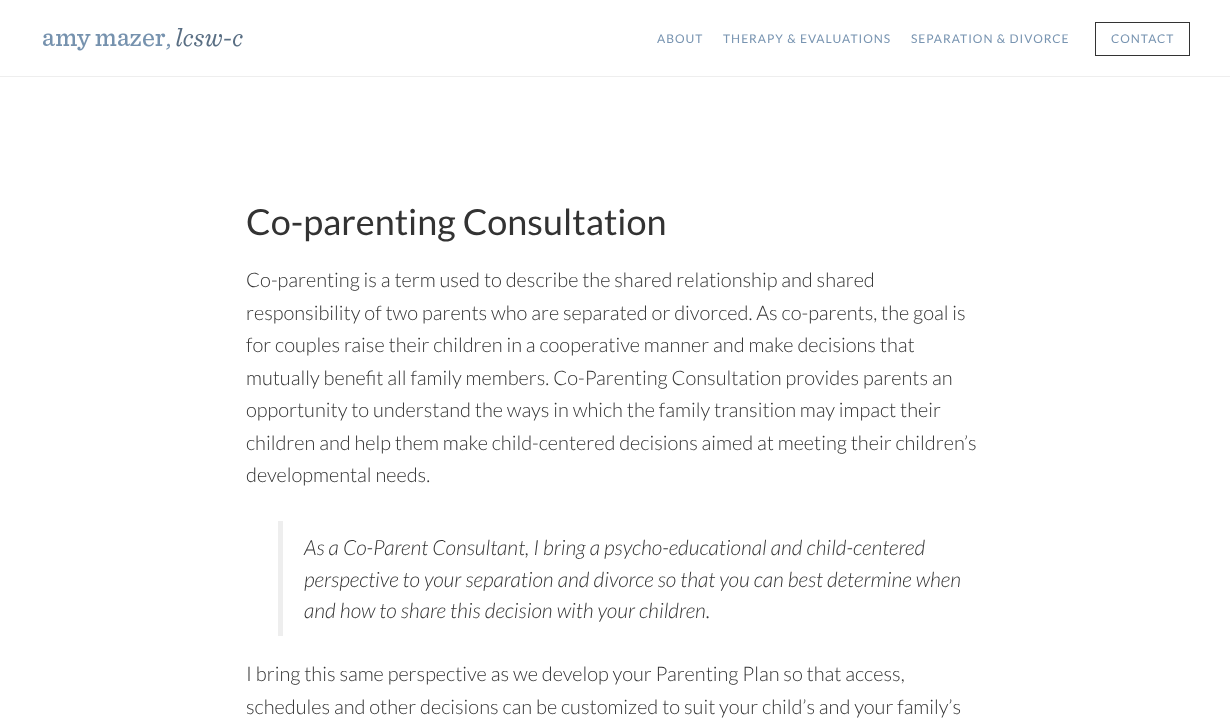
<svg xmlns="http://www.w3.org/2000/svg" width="1230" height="722">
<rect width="100%" height="100%" fill="#fff"/>
<rect y="76" width="1230" height="1" fill="#eee"/>
<image x="43" y="28" width="200" height="23" href="media/1.png"/>
<text x="657" y="43" style="font-family:Lato;font-size:12px;letter-spacing:1px;fill:#7894b1">ABOUT</text>
<text x="723" y="43" style="font-family:Lato;font-size:12px;letter-spacing:1px;fill:#7894b1">THERAPY &amp; EVALUATIONS</text>
<text x="911" y="43" style="font-family:Lato;font-size:12px;letter-spacing:1px;fill:#7894b1">SEPARATION &amp; DIVORCE</text>
<rect x="1095.5" y="22.5" width="94" height="33" fill="none" stroke="#333"/>
<text x="1111" y="43" style="font-family:Lato;font-size:12px;letter-spacing:1px;fill:#7894b1">CONTACT</text>
<text x="246" y="235" style="font-family:Lato;font-size:36px;fill:#333">Co-parenting Consultation</text>
<text x="246" y="287" style="font-family:Lato;font-size:20px;font-weight:300;fill:#333">Co-parenting is a term used to describe the shared relationship and shared</text>
<text x="246" y="320" style="font-family:Lato;font-size:20px;font-weight:300;fill:#333">responsibility of two parents who are separated or divorced. As co-parents, the goal is</text>
<text x="246" y="352" style="font-family:Lato;font-size:20px;font-weight:300;fill:#333">for couples raise their children in a cooperative manner and make decisions that</text>
<text x="246" y="385" style="font-family:Lato;font-size:20px;font-weight:300;fill:#333">mutually benefit all family members. Co-Parenting Consultation provides parents an</text>
<text x="246" y="417" style="font-family:Lato;font-size:20px;font-weight:300;fill:#333">opportunity to understand the ways in which the family transition may impact their</text>
<text x="246" y="450" style="font-family:Lato;font-size:20px;font-weight:300;fill:#333">children and help them make child-centered decisions aimed at meeting their children’s</text>
<text x="246" y="482" style="font-family:Lato;font-size:20px;font-weight:300;fill:#333">developmental needs.</text>
<rect x="278" y="521" width="5" height="115" fill="#eee"/>
<text x="304" y="555" style="font-family:Lato;font-size:21px;font-weight:300;font-style:italic;fill:#333">As a Co-Parent Consultant, I bring a psycho-educational and child-centered</text>
<text x="304" y="587" style="font-family:Lato;font-size:21px;font-weight:300;font-style:italic;fill:#333">perspective to your separation and divorce so that you can best determine when</text>
<text x="304" y="618" style="font-family:Lato;font-size:21px;font-weight:300;font-style:italic;fill:#333">and how to share this decision with your children.</text>
<text x="246" y="681" style="font-family:Lato;font-size:20px;font-weight:300;fill:#333">I bring this same perspective as we develop your Parenting Plan so that access,</text>
<text x="246" y="714" style="font-family:Lato;font-size:20px;font-weight:300;fill:#333">schedules and other decisions can be customized to suit your child’s and your family’s</text>
</svg>
